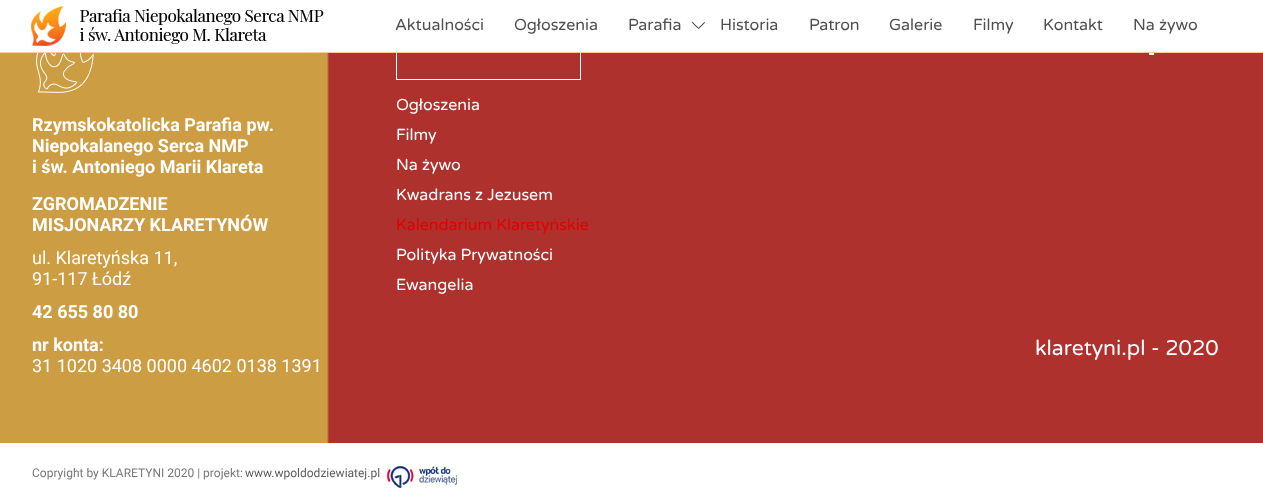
<svg xmlns="http://www.w3.org/2000/svg" width="1263" height="492">
<rect width="100%" height="100%" fill="#fff"/>
<image x="0" y="53" width="1263" height="390" href="media/3.png"/>
<rect x="396.5" y="28.5" width="184" height="51" fill="none" stroke="#fff"/>
<rect y="52" width="1263" height="1" fill="#fdcb9f"/>
<image x="31" y="6" width="293" height="40" href="media/1.png"/>
<text x="395" y="30" style="font-family:Varela Round;font-size:16px;fill:#505050">Aktualności</text>
<text x="514" y="30" style="font-family:Varela Round;font-size:16px;fill:#505050">Ogłoszenia</text>
<image x="691" y="21" width="14" height="8" href="media/2.png"/>
<text x="628" y="30" style="font-family:Varela Round;font-size:16px;fill:#505050">Parafia</text>
<text x="720" y="30" style="font-family:Varela Round;font-size:16px;fill:#505050">Historia</text>
<text x="809" y="30" style="font-family:Varela Round;font-size:16px;fill:#505050">Patron</text>
<text x="889" y="30" style="font-family:Varela Round;font-size:16px;fill:#505050">Galerie</text>
<text x="973" y="30" style="font-family:Varela Round;font-size:16px;fill:#505050">Filmy</text>
<text x="1043" y="30" style="font-family:Varela Round;font-size:16px;fill:#505050">Kontakt</text>
<text x="1133" y="30" style="font-family:Varela Round;font-size:16px;fill:#505050">Na żywo</text>
<image x="36" y="53" width="58" height="40" href="media/4.png"/>
<text x="32" y="131" style="font-family:Roboto;font-size:18px;font-weight:bold;fill:#fff">Rzymskokatolicka Parafia pw.</text>
<text x="32" y="152" style="font-family:Roboto;font-size:18px;font-weight:bold;fill:#fff">Niepokalanego Serca NMP</text>
<text x="32" y="173" style="font-family:Roboto;font-size:18px;font-weight:bold;fill:#fff">i św. Antoniego Marii Klareta</text>
<text x="32" y="210" style="font-family:Roboto;font-size:18px;font-weight:bold;fill:#fff">ZGROMADZENIE</text>
<text x="32" y="231" style="font-family:Roboto;font-size:18px;font-weight:bold;fill:#fff">MISJONARZY KLARETYNÓW</text>
<text x="32" y="264" style="font-family:Roboto;font-size:18px;fill:#fff">ul. Klaretyńska 11,</text>
<text x="32" y="285" style="font-family:Roboto;font-size:18px;fill:#fff">91-117 Łódź</text>
<text x="32" y="318" style="font-family:Roboto;font-size:18px;font-weight:bold;fill:#fff">42 655 80 80</text>
<text x="32" y="351" style="font-family:Roboto;font-size:18px;font-weight:bold;fill:#fff">nr konta:</text>
<text x="32" y="372" style="font-family:Roboto;font-size:18px;fill:#fff">31 1020 3408 0000 4602 0138 1391</text>
<image x="1149" y="53" width="6" height="2" href="media/5.png"/>
<text x="396" y="110" style="font-family:Varela Round;font-size:16px;fill:#fff">Ogłoszenia</text>
<text x="396" y="140" style="font-family:Varela Round;font-size:16px;fill:#fff">Filmy</text>
<text x="396" y="170" style="font-family:Varela Round;font-size:16px;fill:#fff">Na żywo</text>
<text x="396" y="200" style="font-family:Varela Round;font-size:16px;fill:#fff">Kwadrans z Jezusem</text>
<text x="396" y="230" style="font-family:Varela Round;font-size:16px;fill:#e40000">Kalendarium Klaretyńskie</text>
<text x="396" y="260" style="font-family:Varela Round;font-size:16px;fill:#fff">Polityka Prywatności</text>
<text x="396" y="290" style="font-family:Varela Round;font-size:16px;fill:#fff">Ewangelia</text>
<text x="1035" y="355" style="font-family:Varela Round;font-size:21.25px;fill:#fff">klaretyni.pl - 2020</text>
<text x="32" y="477" style="font-family:Roboto;font-size:12px;fill:#787878">Copryight by KLARETYNI 2020 | projekt:</text>
<text x="245" y="477" style="font-family:Roboto;font-size:12px;fill:#5e5d5d">www.wpoldodziewiatej.pl</text>
<image x="387" y="466" width="70" height="22" href="media/6.png"/>
</svg>
